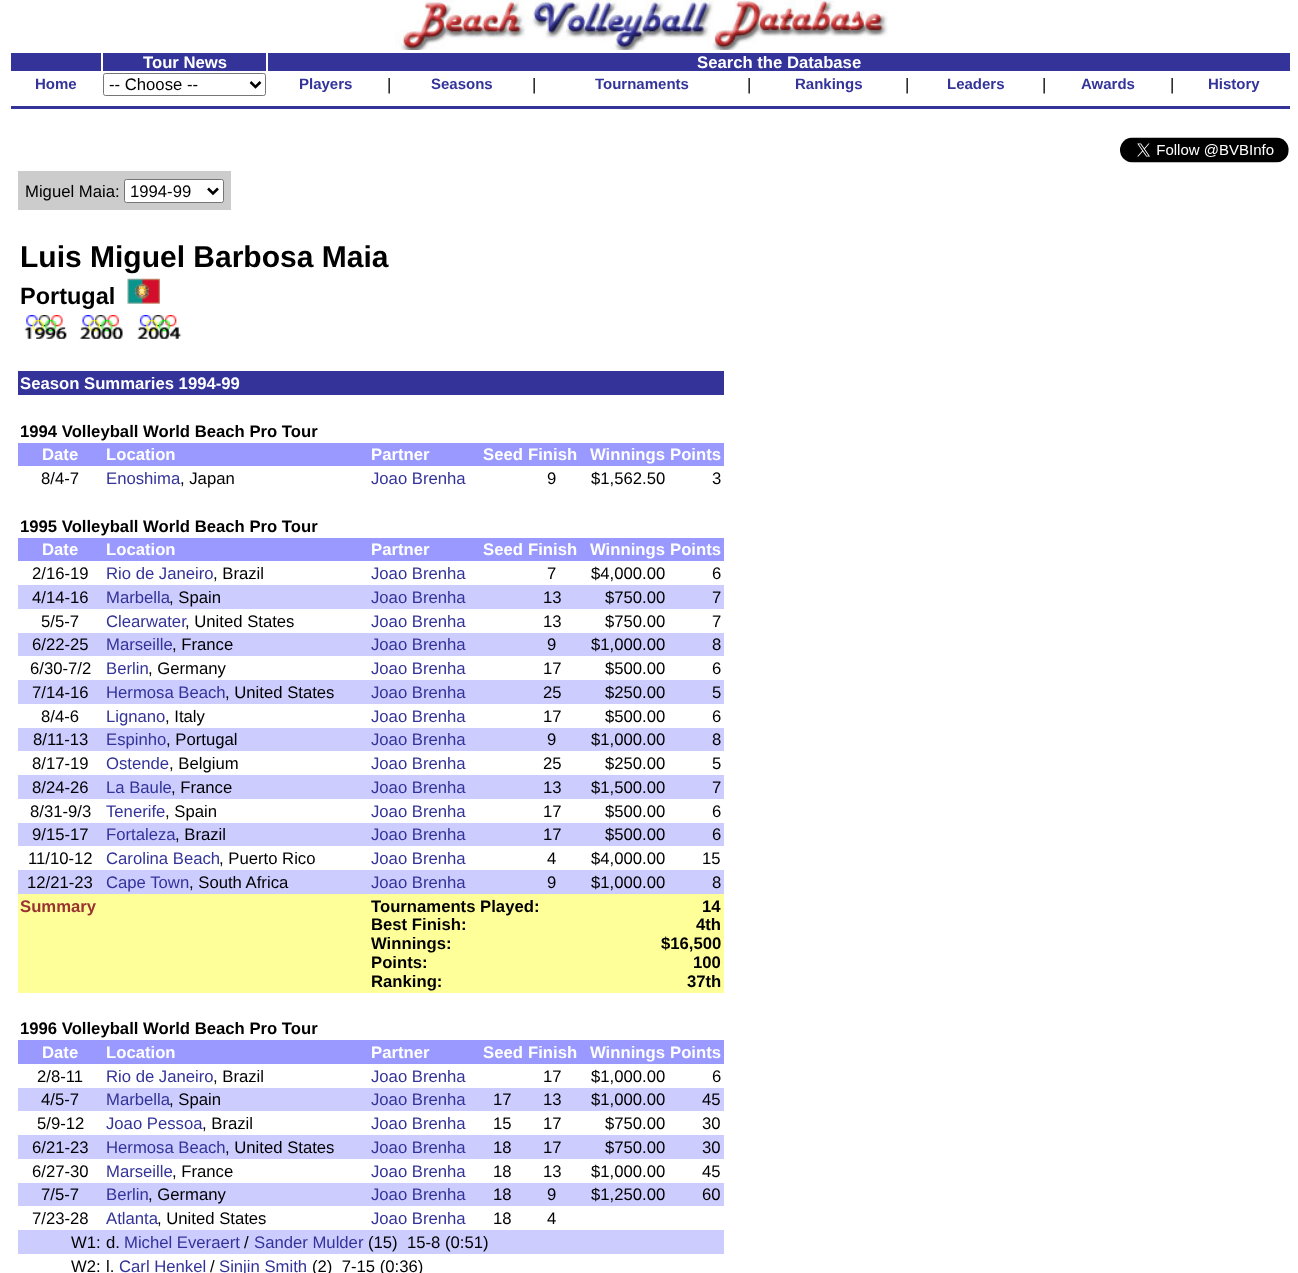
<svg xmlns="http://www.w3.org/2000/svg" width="1298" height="1273">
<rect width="100%" height="100%" fill="#fff"/>
<image x="395" y="0" width="493" height="50" href="media/1.png"/>
<rect x="11" y="53" width="90" height="18" fill="#339"/>
<rect x="103" y="53" width="163" height="18" fill="#339"/>
<text x="143" y="68" style="font-family:Liberation Sans;font-size:16.7px;font-weight:bold;fill:#fff">Tour News</text>
<rect x="268" y="53" width="1022" height="18" fill="#339"/>
<text x="697" y="68" style="font-family:Liberation Sans;font-size:16.7px;font-weight:bold;fill:#fff">Search the Database</text>
<text x="35" y="89" style="font-family:Liberation Sans;font-size:15px;font-weight:bold;fill:#339">Home</text>
<rect x="103.5" y="73.5" width="162" height="22" rx="2" fill="none" stroke="#767676"/>
<path d="M250.5 82l5 5l5-5" fill="none" stroke="#000" stroke-width="2.5"/>
<text x="109" y="90" style="font-family:Liberation Sans;font-size:16.7px;fill:#000">-- Choose --</text>
<text x="299" y="89" style="font-family:Liberation Sans;font-size:15px;font-weight:bold;fill:#339">Players</text>
<text x="387" y="90" style="font-family:Liberation Sans;font-size:16.7px;fill:#000">|</text>
<text x="431" y="89" style="font-family:Liberation Sans;font-size:15px;font-weight:bold;fill:#339">Seasons</text>
<text x="532" y="90" style="font-family:Liberation Sans;font-size:16.7px;fill:#000">|</text>
<text x="595" y="89" style="font-family:Liberation Sans;font-size:15px;font-weight:bold;fill:#339">Tournaments</text>
<text x="747" y="90" style="font-family:Liberation Sans;font-size:16.7px;fill:#000">|</text>
<text x="795" y="89" style="font-family:Liberation Sans;font-size:15px;font-weight:bold;fill:#339">Rankings</text>
<text x="905" y="90" style="font-family:Liberation Sans;font-size:16.7px;fill:#000">|</text>
<text x="947" y="89" style="font-family:Liberation Sans;font-size:15px;font-weight:bold;fill:#339">Leaders</text>
<text x="1042" y="90" style="font-family:Liberation Sans;font-size:16.7px;fill:#000">|</text>
<text x="1081" y="89" style="font-family:Liberation Sans;font-size:15px;font-weight:bold;fill:#339">Awards</text>
<text x="1170" y="90" style="font-family:Liberation Sans;font-size:16.7px;fill:#000">|</text>
<text x="1208" y="89" style="font-family:Liberation Sans;font-size:15px;font-weight:bold;fill:#339">History</text>
<rect x="11" y="106" width="1279" height="3" fill="#339"/>
<image x="1120" y="137" width="169" height="26" href="media/2.png"/>
<rect x="18" y="171" width="213" height="39" fill="#ccc"/>
<text x="25" y="197" style="font-family:Liberation Sans;font-size:16.7px;fill:#000">Miguel Maia:</text>
<rect x="124.5" y="179.5" width="99" height="23" rx="2" fill="#fff" stroke="#767676"/>
<path d="M208 188.5l5 5l5-5" fill="none" stroke="#000" stroke-width="2.5"/>
<text x="130" y="197" style="font-family:Liberation Sans;font-size:16.7px;fill:#000">1994-99</text>
<text x="20" y="267" style="font-family:Liberation Sans;font-size:30px;font-weight:bold;fill:#000">Luis Miguel Barbosa Maia</text>
<text x="20" y="304" style="font-family:Liberation Sans;font-size:23.5px;font-weight:bold;fill:#000">Portugal</text>
<image x="127" y="278" width="33" height="26" href="media/3.png"/>
<image x="24" y="315" width="43" height="24" href="media/4.png"/>
<image x="79" y="315" width="44" height="24" href="media/5.png"/>
<image x="137" y="315" width="45" height="24" href="media/6.png"/>
<rect x="18" y="371" width="706" height="24" fill="#339"/>
<text x="20" y="389" style="font-family:Liberation Sans;font-size:16.7px;font-weight:bold;fill:#fff">Season Summaries 1994-99</text>
<text x="20" y="437" style="font-family:Liberation Sans;font-size:16.7px;font-weight:bold;fill:#000">1994 Volleyball World Beach Pro Tour</text>
<rect x="18" y="443" width="706" height="23" fill="#99f"/>
<text x="42" y="460" style="font-family:Liberation Sans;font-size:16.7px;font-weight:bold;fill:#fff">Date</text>
<text x="106" y="460" style="font-family:Liberation Sans;font-size:16.7px;font-weight:bold;fill:#fff">Location</text>
<text x="371" y="460" style="font-family:Liberation Sans;font-size:16.7px;font-weight:bold;fill:#fff">Partner</text>
<text x="483" y="460" style="font-family:Liberation Sans;font-size:16.7px;font-weight:bold;fill:#fff">Seed</text>
<text x="528" y="460" style="font-family:Liberation Sans;font-size:16.7px;font-weight:bold;fill:#fff">Finish</text>
<text x="590" y="460" style="font-family:Liberation Sans;font-size:16.7px;font-weight:bold;fill:#fff">Winnings</text>
<text x="670" y="460" style="font-family:Liberation Sans;font-size:16.7px;font-weight:bold;fill:#fff">Points</text>
<text x="41" y="484" style="font-family:Liberation Sans;font-size:16.7px;fill:#000">8/4-7</text>
<text x="106" y="484" style="font-family:Liberation Sans;font-size:16.7px;fill:#339">Enoshima</text>
<text x="180" y="484" style="font-family:Liberation Sans;font-size:16.7px;fill:#000">, Japan</text>
<text x="371" y="484" style="font-family:Liberation Sans;font-size:16.7px;fill:#339">Joao Brenha</text>
<text x="547" y="484" style="font-family:Liberation Sans;font-size:16.7px;fill:#000">9</text>
<text x="591" y="484" style="font-family:Liberation Sans;font-size:16.7px;fill:#000">$1,562.50</text>
<text x="712" y="484" style="font-family:Liberation Sans;font-size:16.7px;fill:#000">3</text>
<text x="20" y="532" style="font-family:Liberation Sans;font-size:16.7px;font-weight:bold;fill:#000">1995 Volleyball World Beach Pro Tour</text>
<rect x="18" y="538" width="706" height="23" fill="#99f"/>
<text x="42" y="555" style="font-family:Liberation Sans;font-size:16.7px;font-weight:bold;fill:#fff">Date</text>
<text x="106" y="555" style="font-family:Liberation Sans;font-size:16.7px;font-weight:bold;fill:#fff">Location</text>
<text x="371" y="555" style="font-family:Liberation Sans;font-size:16.7px;font-weight:bold;fill:#fff">Partner</text>
<text x="483" y="555" style="font-family:Liberation Sans;font-size:16.7px;font-weight:bold;fill:#fff">Seed</text>
<text x="528" y="555" style="font-family:Liberation Sans;font-size:16.7px;font-weight:bold;fill:#fff">Finish</text>
<text x="590" y="555" style="font-family:Liberation Sans;font-size:16.7px;font-weight:bold;fill:#fff">Winnings</text>
<text x="670" y="555" style="font-family:Liberation Sans;font-size:16.7px;font-weight:bold;fill:#fff">Points</text>
<text x="32" y="579" style="font-family:Liberation Sans;font-size:16.7px;fill:#000">2/16-19</text>
<text x="106" y="579" style="font-family:Liberation Sans;font-size:16.7px;fill:#339">Rio de Janeiro</text>
<text x="213" y="579" style="font-family:Liberation Sans;font-size:16.7px;fill:#000">, Brazil</text>
<text x="371" y="579" style="font-family:Liberation Sans;font-size:16.7px;fill:#339">Joao Brenha</text>
<text x="547" y="579" style="font-family:Liberation Sans;font-size:16.7px;fill:#000">7</text>
<text x="591" y="579" style="font-family:Liberation Sans;font-size:16.7px;fill:#000">$4,000.00</text>
<text x="712" y="579" style="font-family:Liberation Sans;font-size:16.7px;fill:#000">6</text>
<rect x="18" y="585" width="706" height="24" fill="#ccf"/>
<text x="32" y="603" style="font-family:Liberation Sans;font-size:16.7px;fill:#000">4/14-16</text>
<text x="106" y="603" style="font-family:Liberation Sans;font-size:16.7px;fill:#339">Marbella</text>
<text x="169" y="603" style="font-family:Liberation Sans;font-size:16.7px;fill:#000">, Spain</text>
<text x="371" y="603" style="font-family:Liberation Sans;font-size:16.7px;fill:#339">Joao Brenha</text>
<text x="543" y="603" style="font-family:Liberation Sans;font-size:16.7px;fill:#000">13</text>
<text x="605" y="603" style="font-family:Liberation Sans;font-size:16.7px;fill:#000">$750.00</text>
<text x="712" y="603" style="font-family:Liberation Sans;font-size:16.7px;fill:#000">7</text>
<text x="41" y="627" style="font-family:Liberation Sans;font-size:16.7px;fill:#000">5/5-7</text>
<text x="106" y="627" style="font-family:Liberation Sans;font-size:16.7px;fill:#339">Clearwater</text>
<text x="185" y="627" style="font-family:Liberation Sans;font-size:16.7px;fill:#000">, United States</text>
<text x="371" y="627" style="font-family:Liberation Sans;font-size:16.7px;fill:#339">Joao Brenha</text>
<text x="543" y="627" style="font-family:Liberation Sans;font-size:16.7px;fill:#000">13</text>
<text x="605" y="627" style="font-family:Liberation Sans;font-size:16.7px;fill:#000">$750.00</text>
<text x="712" y="627" style="font-family:Liberation Sans;font-size:16.7px;fill:#000">7</text>
<rect x="18" y="633" width="706" height="23" fill="#ccf"/>
<text x="32" y="650" style="font-family:Liberation Sans;font-size:16.7px;fill:#000">6/22-25</text>
<text x="106" y="650" style="font-family:Liberation Sans;font-size:16.7px;fill:#339">Marseille</text>
<text x="172" y="650" style="font-family:Liberation Sans;font-size:16.7px;fill:#000">, France</text>
<text x="371" y="650" style="font-family:Liberation Sans;font-size:16.7px;fill:#339">Joao Brenha</text>
<text x="547" y="650" style="font-family:Liberation Sans;font-size:16.7px;fill:#000">9</text>
<text x="591" y="650" style="font-family:Liberation Sans;font-size:16.7px;fill:#000">$1,000.00</text>
<text x="712" y="650" style="font-family:Liberation Sans;font-size:16.7px;fill:#000">8</text>
<text x="30" y="674" style="font-family:Liberation Sans;font-size:16.7px;fill:#000">6/30-7/2</text>
<text x="106" y="674" style="font-family:Liberation Sans;font-size:16.7px;fill:#339">Berlin</text>
<text x="148" y="674" style="font-family:Liberation Sans;font-size:16.7px;fill:#000">, Germany</text>
<text x="371" y="674" style="font-family:Liberation Sans;font-size:16.7px;fill:#339">Joao Brenha</text>
<text x="543" y="674" style="font-family:Liberation Sans;font-size:16.7px;fill:#000">17</text>
<text x="605" y="674" style="font-family:Liberation Sans;font-size:16.7px;fill:#000">$500.00</text>
<text x="712" y="674" style="font-family:Liberation Sans;font-size:16.7px;fill:#000">6</text>
<rect x="18" y="680" width="706" height="24" fill="#ccf"/>
<text x="32" y="698" style="font-family:Liberation Sans;font-size:16.7px;fill:#000">7/14-16</text>
<text x="106" y="698" style="font-family:Liberation Sans;font-size:16.7px;fill:#339">Hermosa Beach</text>
<text x="225" y="698" style="font-family:Liberation Sans;font-size:16.7px;fill:#000">, United States</text>
<text x="371" y="698" style="font-family:Liberation Sans;font-size:16.7px;fill:#339">Joao Brenha</text>
<text x="543" y="698" style="font-family:Liberation Sans;font-size:16.7px;fill:#000">25</text>
<text x="605" y="698" style="font-family:Liberation Sans;font-size:16.7px;fill:#000">$250.00</text>
<text x="712" y="698" style="font-family:Liberation Sans;font-size:16.7px;fill:#000">5</text>
<text x="41" y="722" style="font-family:Liberation Sans;font-size:16.7px;fill:#000">8/4-6</text>
<text x="106" y="722" style="font-family:Liberation Sans;font-size:16.7px;fill:#339">Lignano</text>
<text x="165" y="722" style="font-family:Liberation Sans;font-size:16.7px;fill:#000">, Italy</text>
<text x="371" y="722" style="font-family:Liberation Sans;font-size:16.7px;fill:#339">Joao Brenha</text>
<text x="543" y="722" style="font-family:Liberation Sans;font-size:16.7px;fill:#000">17</text>
<text x="605" y="722" style="font-family:Liberation Sans;font-size:16.7px;fill:#000">$500.00</text>
<text x="712" y="722" style="font-family:Liberation Sans;font-size:16.7px;fill:#000">6</text>
<rect x="18" y="728" width="706" height="23" fill="#ccf"/>
<text x="33" y="745" style="font-family:Liberation Sans;font-size:16.7px;fill:#000">8/11-13</text>
<text x="106" y="745" style="font-family:Liberation Sans;font-size:16.7px;fill:#339">Espinho</text>
<text x="166" y="745" style="font-family:Liberation Sans;font-size:16.7px;fill:#000">, Portugal</text>
<text x="371" y="745" style="font-family:Liberation Sans;font-size:16.7px;fill:#339">Joao Brenha</text>
<text x="547" y="745" style="font-family:Liberation Sans;font-size:16.7px;fill:#000">9</text>
<text x="591" y="745" style="font-family:Liberation Sans;font-size:16.7px;fill:#000">$1,000.00</text>
<text x="712" y="745" style="font-family:Liberation Sans;font-size:16.7px;fill:#000">8</text>
<text x="32" y="769" style="font-family:Liberation Sans;font-size:16.7px;fill:#000">8/17-19</text>
<text x="106" y="769" style="font-family:Liberation Sans;font-size:16.7px;fill:#339">Ostende</text>
<text x="169" y="769" style="font-family:Liberation Sans;font-size:16.7px;fill:#000">, Belgium</text>
<text x="371" y="769" style="font-family:Liberation Sans;font-size:16.7px;fill:#339">Joao Brenha</text>
<text x="543" y="769" style="font-family:Liberation Sans;font-size:16.7px;fill:#000">25</text>
<text x="605" y="769" style="font-family:Liberation Sans;font-size:16.7px;fill:#000">$250.00</text>
<text x="712" y="769" style="font-family:Liberation Sans;font-size:16.7px;fill:#000">5</text>
<rect x="18" y="775" width="706" height="24" fill="#ccf"/>
<text x="32" y="793" style="font-family:Liberation Sans;font-size:16.7px;fill:#000">8/24-26</text>
<text x="106" y="793" style="font-family:Liberation Sans;font-size:16.7px;fill:#339">La Baule</text>
<text x="171" y="793" style="font-family:Liberation Sans;font-size:16.7px;fill:#000">, France</text>
<text x="371" y="793" style="font-family:Liberation Sans;font-size:16.7px;fill:#339">Joao Brenha</text>
<text x="543" y="793" style="font-family:Liberation Sans;font-size:16.7px;fill:#000">13</text>
<text x="591" y="793" style="font-family:Liberation Sans;font-size:16.7px;fill:#000">$1,500.00</text>
<text x="712" y="793" style="font-family:Liberation Sans;font-size:16.7px;fill:#000">7</text>
<text x="30" y="817" style="font-family:Liberation Sans;font-size:16.7px;fill:#000">8/31-9/3</text>
<text x="106" y="817" style="font-family:Liberation Sans;font-size:16.7px;fill:#339">Tenerife</text>
<text x="165" y="817" style="font-family:Liberation Sans;font-size:16.7px;fill:#000">, Spain</text>
<text x="371" y="817" style="font-family:Liberation Sans;font-size:16.7px;fill:#339">Joao Brenha</text>
<text x="543" y="817" style="font-family:Liberation Sans;font-size:16.7px;fill:#000">17</text>
<text x="605" y="817" style="font-family:Liberation Sans;font-size:16.7px;fill:#000">$500.00</text>
<text x="712" y="817" style="font-family:Liberation Sans;font-size:16.7px;fill:#000">6</text>
<rect x="18" y="823" width="706" height="23" fill="#ccf"/>
<text x="32" y="840" style="font-family:Liberation Sans;font-size:16.7px;fill:#000">9/15-17</text>
<text x="106" y="840" style="font-family:Liberation Sans;font-size:16.7px;fill:#339">Fortaleza</text>
<text x="175" y="840" style="font-family:Liberation Sans;font-size:16.7px;fill:#000">, Brazil</text>
<text x="371" y="840" style="font-family:Liberation Sans;font-size:16.7px;fill:#339">Joao Brenha</text>
<text x="543" y="840" style="font-family:Liberation Sans;font-size:16.7px;fill:#000">17</text>
<text x="605" y="840" style="font-family:Liberation Sans;font-size:16.7px;fill:#000">$500.00</text>
<text x="712" y="840" style="font-family:Liberation Sans;font-size:16.7px;fill:#000">6</text>
<text x="28" y="864" style="font-family:Liberation Sans;font-size:16.7px;fill:#000">11/10-12</text>
<text x="106" y="864" style="font-family:Liberation Sans;font-size:16.7px;fill:#339">Carolina Beach</text>
<text x="219" y="864" style="font-family:Liberation Sans;font-size:16.7px;fill:#000">, Puerto Rico</text>
<text x="371" y="864" style="font-family:Liberation Sans;font-size:16.7px;fill:#339">Joao Brenha</text>
<text x="547" y="864" style="font-family:Liberation Sans;font-size:16.7px;fill:#000">4</text>
<text x="591" y="864" style="font-family:Liberation Sans;font-size:16.7px;fill:#000">$4,000.00</text>
<text x="702" y="864" style="font-family:Liberation Sans;font-size:16.7px;fill:#000">15</text>
<rect x="18" y="870" width="706" height="24" fill="#ccf"/>
<text x="27" y="888" style="font-family:Liberation Sans;font-size:16.7px;fill:#000">12/21-23</text>
<text x="106" y="888" style="font-family:Liberation Sans;font-size:16.7px;fill:#339">Cape Town</text>
<text x="189" y="888" style="font-family:Liberation Sans;font-size:16.7px;fill:#000">, South Africa</text>
<text x="371" y="888" style="font-family:Liberation Sans;font-size:16.7px;fill:#339">Joao Brenha</text>
<text x="547" y="888" style="font-family:Liberation Sans;font-size:16.7px;fill:#000">9</text>
<text x="591" y="888" style="font-family:Liberation Sans;font-size:16.7px;fill:#000">$1,000.00</text>
<text x="712" y="888" style="font-family:Liberation Sans;font-size:16.7px;fill:#000">8</text>
<rect x="18" y="894" width="706" height="99" fill="#ff9"/>
<text x="20" y="912" style="font-family:Liberation Sans;font-size:16.7px;font-weight:bold;fill:#933">Summary</text>
<text x="371" y="912" style="font-family:Liberation Sans;font-size:16.7px;font-weight:bold;fill:#000">Tournaments Played:</text>
<text x="702" y="912" style="font-family:Liberation Sans;font-size:16.7px;font-weight:bold;fill:#000">14</text>
<text x="371" y="930" style="font-family:Liberation Sans;font-size:16.7px;font-weight:bold;fill:#000">Best Finish:</text>
<text x="696" y="930" style="font-family:Liberation Sans;font-size:16.7px;font-weight:bold;fill:#000">4th</text>
<text x="371" y="949" style="font-family:Liberation Sans;font-size:16.7px;font-weight:bold;fill:#000">Winnings:</text>
<text x="661" y="949" style="font-family:Liberation Sans;font-size:16.7px;font-weight:bold;fill:#000">$16,500</text>
<text x="371" y="968" style="font-family:Liberation Sans;font-size:16.7px;font-weight:bold;fill:#000">Points:</text>
<text x="693" y="968" style="font-family:Liberation Sans;font-size:16.7px;font-weight:bold;fill:#000">100</text>
<text x="371" y="987" style="font-family:Liberation Sans;font-size:16.7px;font-weight:bold;fill:#000">Ranking:</text>
<text x="687" y="987" style="font-family:Liberation Sans;font-size:16.7px;font-weight:bold;fill:#000">37th</text>
<text x="20" y="1034" style="font-family:Liberation Sans;font-size:16.7px;font-weight:bold;fill:#000">1996 Volleyball World Beach Pro Tour</text>
<rect x="18" y="1040" width="706" height="24" fill="#99f"/>
<text x="42" y="1058" style="font-family:Liberation Sans;font-size:16.7px;font-weight:bold;fill:#fff">Date</text>
<text x="106" y="1058" style="font-family:Liberation Sans;font-size:16.7px;font-weight:bold;fill:#fff">Location</text>
<text x="371" y="1058" style="font-family:Liberation Sans;font-size:16.7px;font-weight:bold;fill:#fff">Partner</text>
<text x="483" y="1058" style="font-family:Liberation Sans;font-size:16.7px;font-weight:bold;fill:#fff">Seed</text>
<text x="528" y="1058" style="font-family:Liberation Sans;font-size:16.7px;font-weight:bold;fill:#fff">Finish</text>
<text x="590" y="1058" style="font-family:Liberation Sans;font-size:16.7px;font-weight:bold;fill:#fff">Winnings</text>
<text x="670" y="1058" style="font-family:Liberation Sans;font-size:16.7px;font-weight:bold;fill:#fff">Points</text>
<text x="37" y="1082" style="font-family:Liberation Sans;font-size:16.7px;fill:#000">2/8-11</text>
<text x="106" y="1082" style="font-family:Liberation Sans;font-size:16.7px;fill:#339">Rio de Janeiro</text>
<text x="213" y="1082" style="font-family:Liberation Sans;font-size:16.7px;fill:#000">, Brazil</text>
<text x="371" y="1082" style="font-family:Liberation Sans;font-size:16.7px;fill:#339">Joao Brenha</text>
<text x="543" y="1082" style="font-family:Liberation Sans;font-size:16.7px;fill:#000">17</text>
<text x="591" y="1082" style="font-family:Liberation Sans;font-size:16.7px;fill:#000">$1,000.00</text>
<text x="712" y="1082" style="font-family:Liberation Sans;font-size:16.7px;fill:#000">6</text>
<rect x="18" y="1088" width="706" height="23" fill="#ccf"/>
<text x="41" y="1105" style="font-family:Liberation Sans;font-size:16.7px;fill:#000">4/5-7</text>
<text x="106" y="1105" style="font-family:Liberation Sans;font-size:16.7px;fill:#339">Marbella</text>
<text x="169" y="1105" style="font-family:Liberation Sans;font-size:16.7px;fill:#000">, Spain</text>
<text x="371" y="1105" style="font-family:Liberation Sans;font-size:16.7px;fill:#339">Joao Brenha</text>
<text x="493" y="1105" style="font-family:Liberation Sans;font-size:16.7px;fill:#000">17</text>
<text x="543" y="1105" style="font-family:Liberation Sans;font-size:16.7px;fill:#000">13</text>
<text x="591" y="1105" style="font-family:Liberation Sans;font-size:16.7px;fill:#000">$1,000.00</text>
<text x="702" y="1105" style="font-family:Liberation Sans;font-size:16.7px;fill:#000">45</text>
<text x="37" y="1129" style="font-family:Liberation Sans;font-size:16.7px;fill:#000">5/9-12</text>
<text x="106" y="1129" style="font-family:Liberation Sans;font-size:16.7px;fill:#339">Joao Pessoa</text>
<text x="202" y="1129" style="font-family:Liberation Sans;font-size:16.7px;fill:#000">, Brazil</text>
<text x="371" y="1129" style="font-family:Liberation Sans;font-size:16.7px;fill:#339">Joao Brenha</text>
<text x="493" y="1129" style="font-family:Liberation Sans;font-size:16.7px;fill:#000">15</text>
<text x="543" y="1129" style="font-family:Liberation Sans;font-size:16.7px;fill:#000">17</text>
<text x="605" y="1129" style="font-family:Liberation Sans;font-size:16.7px;fill:#000">$750.00</text>
<text x="702" y="1129" style="font-family:Liberation Sans;font-size:16.7px;fill:#000">30</text>
<rect x="18" y="1135" width="706" height="24" fill="#ccf"/>
<text x="32" y="1153" style="font-family:Liberation Sans;font-size:16.7px;fill:#000">6/21-23</text>
<text x="106" y="1153" style="font-family:Liberation Sans;font-size:16.7px;fill:#339">Hermosa Beach</text>
<text x="225" y="1153" style="font-family:Liberation Sans;font-size:16.7px;fill:#000">, United States</text>
<text x="371" y="1153" style="font-family:Liberation Sans;font-size:16.7px;fill:#339">Joao Brenha</text>
<text x="493" y="1153" style="font-family:Liberation Sans;font-size:16.7px;fill:#000">18</text>
<text x="543" y="1153" style="font-family:Liberation Sans;font-size:16.7px;fill:#000">17</text>
<text x="605" y="1153" style="font-family:Liberation Sans;font-size:16.7px;fill:#000">$750.00</text>
<text x="702" y="1153" style="font-family:Liberation Sans;font-size:16.7px;fill:#000">30</text>
<text x="32" y="1177" style="font-family:Liberation Sans;font-size:16.7px;fill:#000">6/27-30</text>
<text x="106" y="1177" style="font-family:Liberation Sans;font-size:16.7px;fill:#339">Marseille</text>
<text x="172" y="1177" style="font-family:Liberation Sans;font-size:16.7px;fill:#000">, France</text>
<text x="371" y="1177" style="font-family:Liberation Sans;font-size:16.7px;fill:#339">Joao Brenha</text>
<text x="493" y="1177" style="font-family:Liberation Sans;font-size:16.7px;fill:#000">18</text>
<text x="543" y="1177" style="font-family:Liberation Sans;font-size:16.7px;fill:#000">13</text>
<text x="591" y="1177" style="font-family:Liberation Sans;font-size:16.7px;fill:#000">$1,000.00</text>
<text x="702" y="1177" style="font-family:Liberation Sans;font-size:16.7px;fill:#000">45</text>
<rect x="18" y="1183" width="706" height="23" fill="#ccf"/>
<text x="41" y="1200" style="font-family:Liberation Sans;font-size:16.7px;fill:#000">7/5-7</text>
<text x="106" y="1200" style="font-family:Liberation Sans;font-size:16.7px;fill:#339">Berlin</text>
<text x="148" y="1200" style="font-family:Liberation Sans;font-size:16.7px;fill:#000">, Germany</text>
<text x="371" y="1200" style="font-family:Liberation Sans;font-size:16.7px;fill:#339">Joao Brenha</text>
<text x="493" y="1200" style="font-family:Liberation Sans;font-size:16.7px;fill:#000">18</text>
<text x="547" y="1200" style="font-family:Liberation Sans;font-size:16.7px;fill:#000">9</text>
<text x="591" y="1200" style="font-family:Liberation Sans;font-size:16.7px;fill:#000">$1,250.00</text>
<text x="702" y="1200" style="font-family:Liberation Sans;font-size:16.7px;fill:#000">60</text>
<text x="32" y="1224" style="font-family:Liberation Sans;font-size:16.7px;fill:#000">7/23-28</text>
<text x="106" y="1224" style="font-family:Liberation Sans;font-size:16.7px;fill:#339">Atlanta</text>
<text x="157" y="1224" style="font-family:Liberation Sans;font-size:16.7px;fill:#000">, United States</text>
<text x="371" y="1224" style="font-family:Liberation Sans;font-size:16.7px;fill:#339">Joao Brenha</text>
<text x="493" y="1224" style="font-family:Liberation Sans;font-size:16.7px;fill:#000">18</text>
<text x="547" y="1224" style="font-family:Liberation Sans;font-size:16.7px;fill:#000">4</text>
<rect x="18" y="1230" width="706" height="24" fill="#ccf"/>
<text x="71" y="1248" style="font-family:Liberation Sans;font-size:16.7px;fill:#000">W1:</text>
<text x="106" y="1248" style="font-family:Liberation Sans;font-size:16.7px;fill:#000">d.</text>
<text x="124" y="1248" style="font-family:Liberation Sans;font-size:16.7px;fill:#339">Michel Everaert</text>
<text x="244" y="1248" style="font-family:Liberation Sans;font-size:16.7px;fill:#000">/</text>
<text x="254" y="1248" style="font-family:Liberation Sans;font-size:16.7px;fill:#339">Sander Mulder</text>
<text x="368" y="1248" style="font-family:Liberation Sans;font-size:16.7px;fill:#000" xml:space="preserve">(15)  15-8 (0:51)</text>
<text x="71" y="1272" style="font-family:Liberation Sans;font-size:16.7px;fill:#000">W2:</text>
<text x="106" y="1272" style="font-family:Liberation Sans;font-size:16.7px;fill:#000">l.</text>
<text x="119" y="1272" style="font-family:Liberation Sans;font-size:16.7px;fill:#339">Carl Henkel</text>
<text x="210" y="1272" style="font-family:Liberation Sans;font-size:16.7px;fill:#000">/</text>
<text x="219" y="1272" style="font-family:Liberation Sans;font-size:16.7px;fill:#339">Sinjin Smith</text>
<text x="312" y="1272" style="font-family:Liberation Sans;font-size:16.7px;fill:#000" xml:space="preserve">(2)  7-15 (0:36)</text>
</svg>
